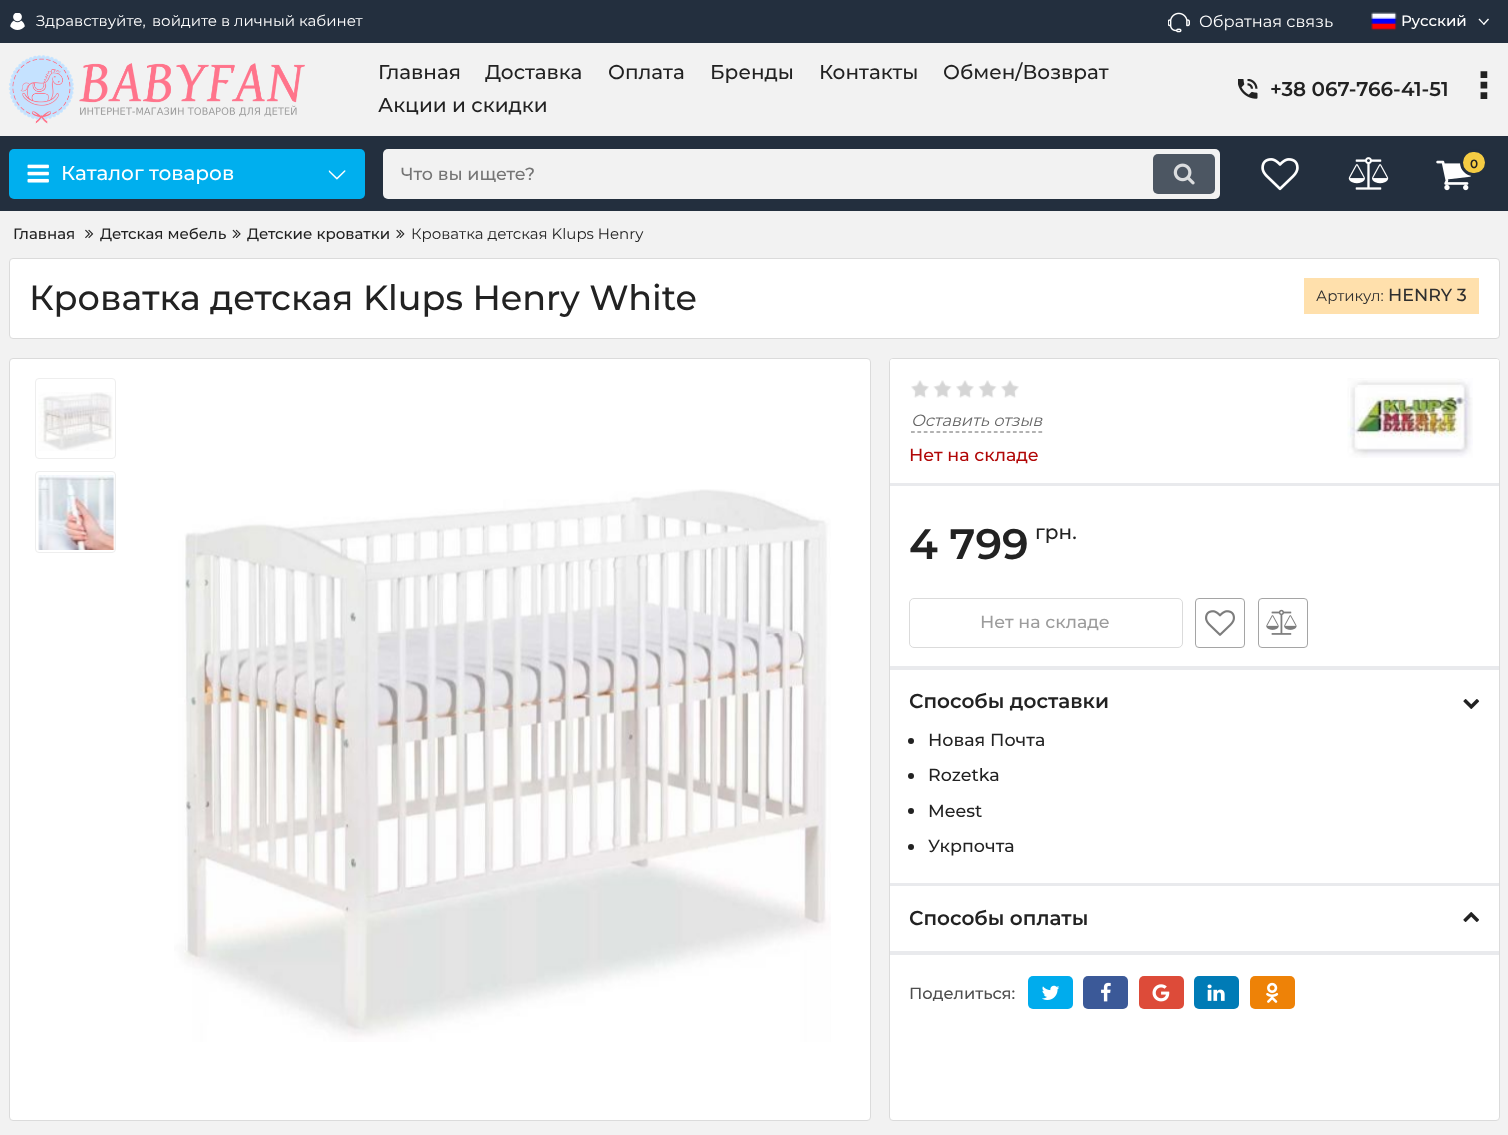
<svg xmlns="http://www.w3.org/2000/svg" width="1508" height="1135">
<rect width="100%" height="100%" fill="#f2f2f2"/>
<rect width="1508" height="43" fill="#232f3e"/>
<image x="10" y="13" width="15" height="17" href="media/1.png"/>
<text x="36" y="26" style="font-family:Montserrat;font-size:15px;fill:#fff">Здравствуйте,</text>
<text x="152" y="26" style="font-family:Montserrat;font-size:15px;fill:#fff">войдите в личный кабинет</text>
<image x="1168" y="12" width="22" height="21" href="media/2.png"/>
<text x="1199" y="27" style="font-family:Montserrat;font-size:16.25px;fill:#fff">Обратная связь</text>
<image x="1371" y="12" width="26" height="19" href="media/3.png"/>
<text x="1401" y="26" style="font-family:Montserrat;font-size:15px;font-weight:500;fill:#fff">Русский</text>
<path d="M1488 18.5l1 1l-5 5.5l-1-1z" fill="#fff"/>
<path d="M1479.5 18.5l5 5.5l-.5 1l-5.5-5.5z" fill="#fff"/>
<image x="8" y="55" width="297" height="69" href="media/4.png"/>
<text x="378" y="79" style="font-family:Montserrat;font-size:20px;font-weight:500;fill:#222">Главная</text>
<text x="485" y="79" style="font-family:Montserrat;font-size:20px;font-weight:500;fill:#222">Доставка</text>
<text x="608" y="79" style="font-family:Montserrat;font-size:20px;font-weight:500;fill:#222">Оплата</text>
<text x="710" y="79" style="font-family:Montserrat;font-size:20px;font-weight:500;fill:#222">Бренды</text>
<text x="819" y="79" style="font-family:Montserrat;font-size:20px;font-weight:500;fill:#222">Контакты</text>
<text x="943" y="79" style="font-family:Montserrat;font-size:20px;font-weight:500;fill:#222">Обмен/Возврат</text>
<text x="378" y="112" style="font-family:Montserrat;font-size:20px;font-weight:500;fill:#222">Акции и скидки</text>
<image x="1238" y="79" width="20" height="20" href="media/5.png"/>
<text x="1270" y="96" style="font-family:Montserrat;font-size:20px;font-weight:600;fill:#222">+38 067-766-41-51</text>
<text x="1475" y="102" style="font-family:DejaVu Sans;font-size:38px;font-weight:bold;fill:#222">⠇</text>
<rect y="136" width="1508" height="75" fill="#232f3e"/>
<image x="1261" y="158" width="38" height="33" href="media/6.png"/>
<image x="1348" y="157" width="41" height="33" href="media/7.png"/>
<image x="1436" y="160" width="36" height="31" href="media/8.png"/>
<rect x="1461.5" y="150.5" width="25" height="24" rx="12" fill="#f5cc43" stroke="#232f3e" stroke-width="3"/>
<text x="1470" y="168" style="font-family:Montserrat;font-size:12px;font-weight:600;fill:#222">0</text>
<rect x="9" y="149" width="356" height="50" rx="5" fill="#00afee"/>
<image x="27" y="164" width="22" height="19" href="media/9.png"/>
<text x="61" y="180" style="font-family:Montserrat;font-size:20px;font-weight:500;fill:#fff">Каталог товаров</text>
<image x="328" y="170" width="18" height="10" href="media/10.png"/>
<rect x="383" y="149" width="837" height="50" rx="5" fill="#f2f2f2"/>
<text x="401" y="180" style="font-family:Montserrat;font-size:17.5px;font-weight:500;fill:#757575">Что вы ищете?</text>
<rect x="1153" y="154" width="62" height="40" rx="5" fill="#4c5662"/>
<image x="1173" y="163" width="22" height="22" href="media/11.png"/>
<text x="13" y="239" style="font-family:Montserrat;font-size:15px;font-weight:500;fill:#222">Главная</text>
<image x="85" y="229" width="9" height="10" href="media/12.png"/>
<text x="100" y="239" style="font-family:Montserrat;font-size:15px;font-weight:500;fill:#222">Детская мебель</text>
<image x="232" y="229" width="9" height="10" href="media/13.png"/>
<text x="247" y="239" style="font-family:Montserrat;font-size:15px;font-weight:500;fill:#222">Детские кроватки</text>
<image x="396" y="229" width="9" height="10" href="media/14.png"/>
<text x="411" y="239" style="font-family:Montserrat;font-size:15px;fill:#222">Кроватка детская Klups Henry</text>
<rect x="9.5" y="258.5" width="1490" height="80" rx="3.5" fill="#fff" stroke="#dbdbdb"/>
<text x="29" y="310" style="font-family:Montserrat;font-size:35px;font-weight:500;fill:#222">Кроватка детская Klups Henry White</text>
<rect x="1304" y="278" width="175" height="36" fill="#ffe0ac"/>
<text x="1316" y="301" style="font-family:Montserrat;font-size:15px;fill:#2f2f2f">Артикул:</text>
<text x="1388" y="301" style="font-family:Montserrat;font-size:17.5px;font-weight:500;fill:#2f2f2f">HENRY 3</text>
<rect x="9.5" y="358.5" width="861" height="762" rx="3.5" fill="#fff" stroke="#dbdbdb"/>
<rect x="35.5" y="378.5" width="80" height="80" rx="3.5" fill="none" stroke="#eee"/>
<image x="38" y="392" width="75" height="59" href="media/15.png"/>
<rect x="35.5" y="471.5" width="80" height="81" rx="3.5" fill="none" stroke="#eee"/>
<image x="38" y="475" width="77" height="75" href="media/16.png"/>
<image x="174" y="489" width="657" height="553" href="media/17.png"/>
<rect x="889.5" y="358.5" width="610" height="762" rx="3.5" fill="#fff" stroke="#dbdbdb"/>
<path d="M892.5 359h604c1.5 0 2.5 1 2.5 2.5v124.5h-609v-124.5c0-1.5 1-2.5 2.5-2.5z" fill="#fff"/>
<rect x="890" y="483" width="609" height="3" fill="#e9eaed"/>
<image x="911" y="380" width="108" height="18" href="media/18.png"/>
<image x="1347" y="378" width="126" height="80" href="media/19.png"/>
<path d="M911 432h131.5" fill="none" stroke="#666" stroke-width="1.2" stroke-dasharray="3.75 2.62"/>
<text x="911" y="426" style="font-family:Montserrat;font-size:16.25px;font-style:italic;fill:#666">Оставить отзыв</text>
<text x="909" y="461" style="font-family:Montserrat;font-size:17.5px;font-weight:500;fill:#b10707">Нет на складе</text>
<rect x="890" y="666" width="609" height="4" fill="#e9eaed"/>
<text x="909" y="559" style="font-family:Montserrat;font-size:42.5px;font-weight:600;fill:#222">4 799</text>
<text x="1035" y="539" style="font-family:Montserrat;font-size:20px;font-weight:500;fill:#222">грн.</text>
<rect x="909.5" y="598.5" width="273" height="49" rx="4.5" fill="none" stroke="#dbdbdb"/>
<text x="980" y="628" style="font-family:Montserrat;font-size:17.5px;font-weight:500;fill:#9c9c9c">Нет на складе</text>
<rect x="1195.5" y="598.5" width="49" height="49" rx="3.5" fill="none" stroke="#a5a5a5"/>
<image x="1205" y="610" width="30" height="26" href="media/20.png"/>
<rect x="1258.5" y="598.5" width="49" height="49" rx="3.5" fill="none" stroke="#a5a5a5"/>
<image x="1266" y="609" width="31" height="26" href="media/21.png"/>
<rect x="890" y="951" width="609" height="4" fill="#e9eaed"/>
<rect x="890" y="883" width="609" height="3" fill="#e9eaed"/>
<text x="909" y="708" style="font-family:Montserrat;font-size:20px;font-weight:600;fill:#222">Способы доставки</text>
<image x="1463" y="699" width="17" height="10" href="media/22.png"/>
<circle cx="911" cy="741" r="3" fill="#222"/>
<text x="928" y="746" style="font-family:Montserrat;font-size:17.5px;font-weight:500;fill:#222">Новая Почта</text>
<circle cx="911" cy="776" r="3" fill="#222"/>
<text x="928" y="781" style="font-family:Montserrat;font-size:17.5px;font-weight:500;fill:#222">Rozetka</text>
<circle cx="911" cy="811" r="3" fill="#222"/>
<text x="928" y="817" style="font-family:Montserrat;font-size:17.5px;font-weight:500;fill:#222">Meest</text>
<circle cx="911" cy="847" r="3" fill="#222"/>
<text x="928" y="852" style="font-family:Montserrat;font-size:17.5px;font-weight:500;fill:#222">Укрпочта</text>
<text x="909" y="925" style="font-family:Montserrat;font-size:20px;font-weight:600;fill:#222">Способы оплаты</text>
<image x="1463" y="912" width="16" height="10" href="media/23.png"/>
<text x="909" y="999" style="font-family:Montserrat;font-size:16.25px;font-weight:500;fill:#4e4e4e">Поделиться:</text>
<rect x="1028" y="976" width="45" height="33" rx="5" fill="#00aced"/>
<image x="1042" y="985" width="18" height="15" href="media/24.png"/>
<rect x="1083" y="976" width="45" height="33" rx="5" fill="#3b5998"/>
<image x="1101" y="982" width="10" height="20" href="media/25.png"/>
<rect x="1139" y="976" width="45" height="33" rx="5" fill="#dd4b39"/>
<image x="1152" y="984" width="18" height="18" href="media/26.png"/>
<rect x="1194" y="976" width="45" height="33" rx="5" fill="#007bb6"/>
<image x="1207" y="984" width="18" height="17" href="media/27.png"/>
<rect x="1250" y="976" width="45" height="33" rx="5" fill="#ee8207"/>
<image x="1266" y="982" width="13" height="21" href="media/28.png"/>
</svg>
